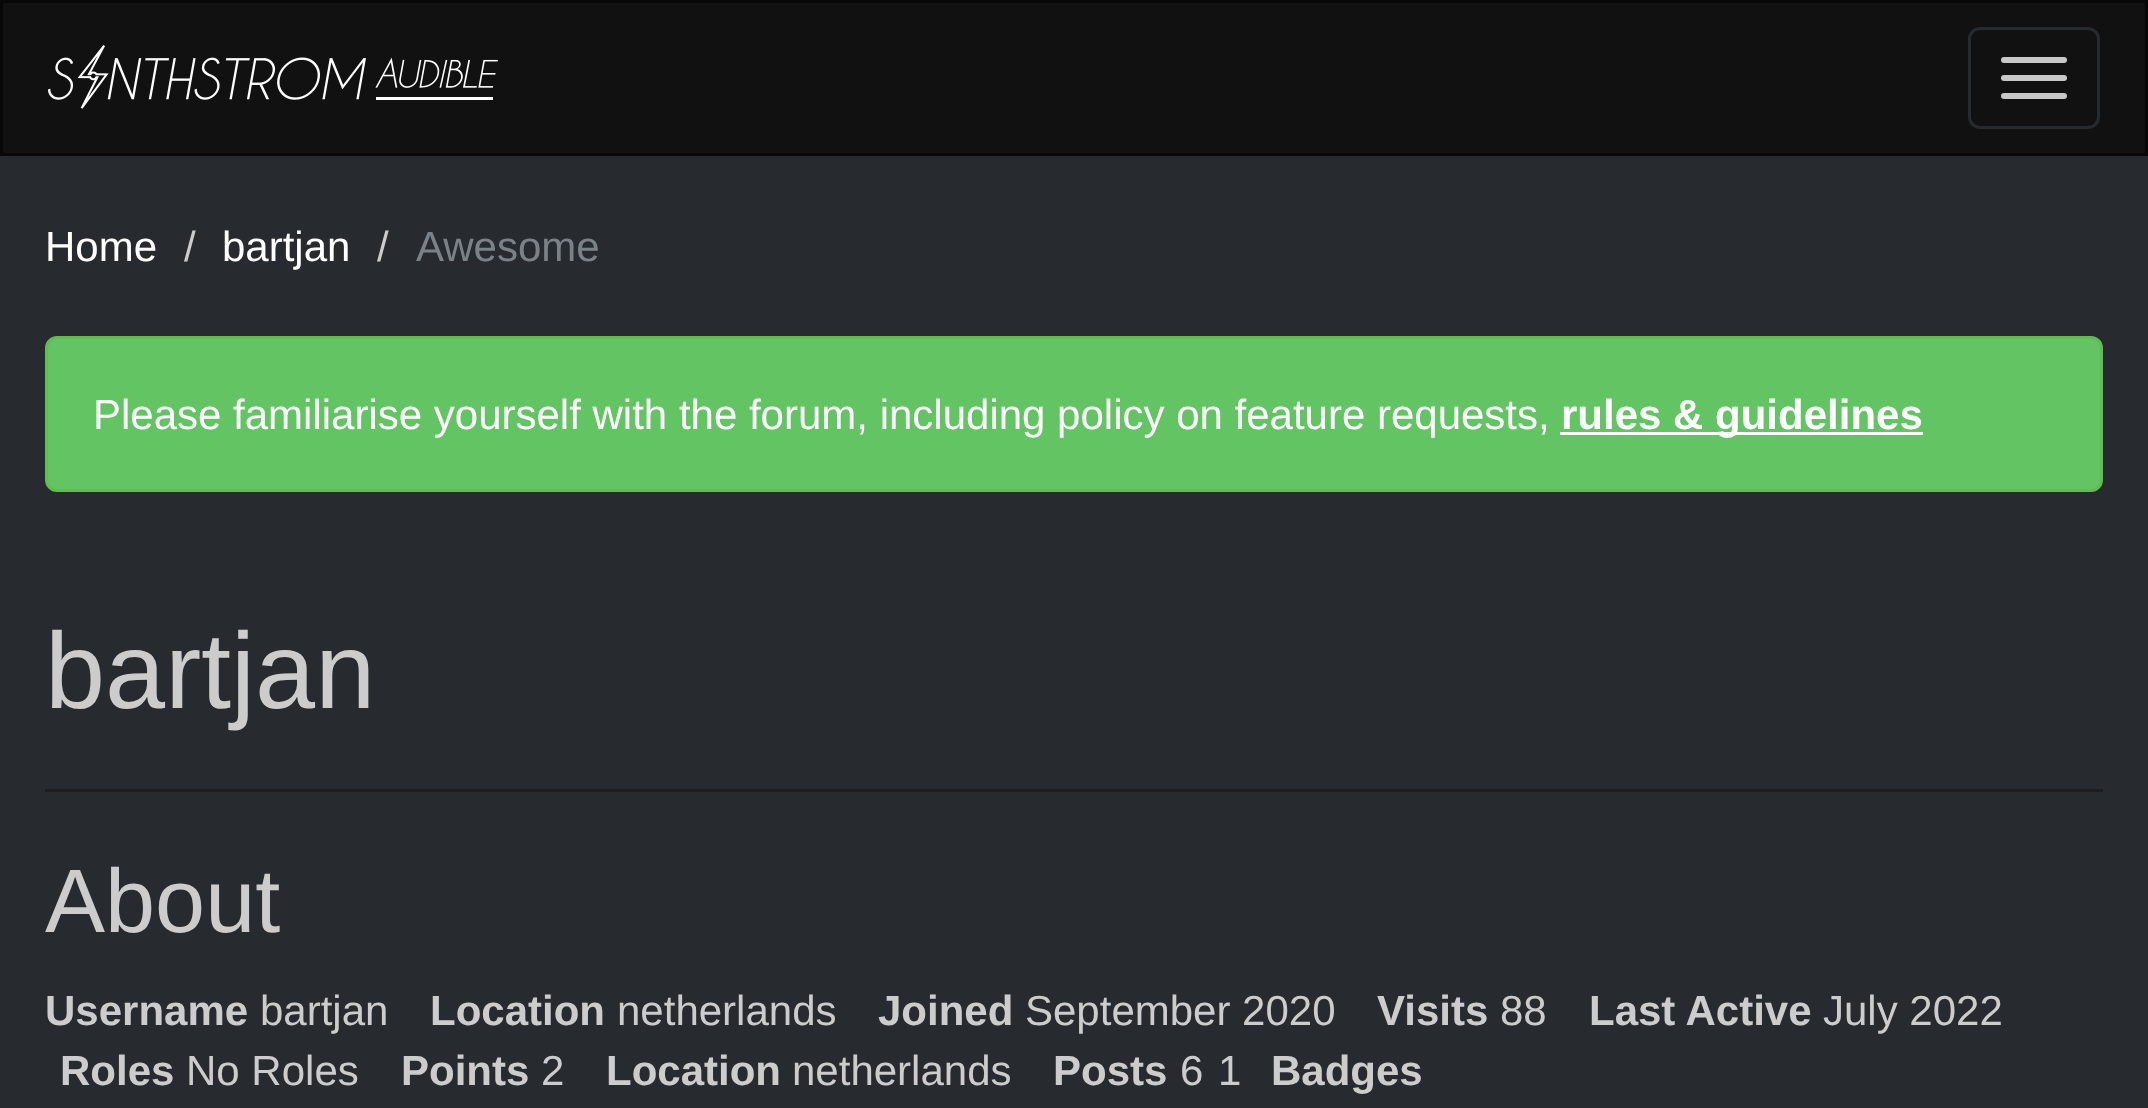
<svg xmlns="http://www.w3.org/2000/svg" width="2148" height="1108">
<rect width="100%" height="100%" fill="#272b30"/>
<rect x="1.5" y="1.5" width="2145" height="153" fill="#111" stroke="#070707" stroke-width="3"/>
<image x="48" y="45" width="450" height="64" href="media/1.png"/>
<rect x="1969.5" y="28.5" width="129" height="99" rx="10.5" fill="none" stroke="#272b2e" stroke-width="3"/>
<rect x="2001" y="57" width="66" height="6" rx="3" fill="#c8c8c8"/>
<rect x="2001" y="75" width="66" height="6" rx="3" fill="#c8c8c8"/>
<rect x="2001" y="93" width="66" height="6" rx="3" fill="#c8c8c8"/>
<text x="45" y="261" style="font-family:Liberation Sans;font-size:42px;fill:#fff">Home</text>
<text x="184" y="261" style="font-family:Liberation Sans;font-size:42px;fill:#ccc">/</text>
<text x="222" y="261" style="font-family:Liberation Sans;font-size:42px;fill:#fff">bartjan</text>
<text x="377" y="261" style="font-family:Liberation Sans;font-size:42px;fill:#ccc">/</text>
<text x="416" y="261" style="font-family:Liberation Sans;font-size:42px;fill:#7a8288">Awesome</text>
<rect x="46.5" y="337.5" width="2055" height="153" rx="10.5" fill="#62c462" stroke="#62bd4f" stroke-width="3"/>
<text x="93" y="429" style="font-family:Liberation Sans;font-size:42px;fill:#fff">Please familiarise yourself with the forum, including policy on feature requests,</text>
<rect x="1560" y="432" width="363" height="3" fill="#fff"/>
<text x="1561" y="429" style="font-family:Liberation Sans;font-size:42px;font-weight:bold;fill:#fff">rules &amp; guidelines</text>
<rect x="45" y="789" width="2058" height="3" fill="#1c1e22"/>
<text x="45" y="708" style="font-family:Liberation Sans;font-size:108px;fill:#ccc">bartjan</text>
<text x="45" y="932" style="font-family:Liberation Sans;font-size:90px;fill:#ccc">About</text>
<text x="45" y="1025" style="font-family:Liberation Sans;font-size:42px;font-weight:bold;fill:#ccc">Username</text>
<text x="260" y="1025" style="font-family:Liberation Sans;font-size:42px;fill:#ccc">bartjan</text>
<text x="430" y="1025" style="font-family:Liberation Sans;font-size:42px;font-weight:bold;fill:#ccc">Location</text>
<text x="617" y="1025" style="font-family:Liberation Sans;font-size:42px;fill:#ccc">netherlands</text>
<text x="878" y="1025" style="font-family:Liberation Sans;font-size:42px;font-weight:bold;fill:#ccc">Joined</text>
<text x="1025" y="1025" style="font-family:Liberation Sans;font-size:42px;fill:#ccc">September 2020</text>
<text x="1377" y="1025" style="font-family:Liberation Sans;font-size:42px;font-weight:bold;fill:#ccc">Visits</text>
<text x="1500" y="1025" style="font-family:Liberation Sans;font-size:42px;fill:#ccc">88</text>
<text x="1589" y="1025" style="font-family:Liberation Sans;font-size:42px;font-weight:bold;fill:#ccc">Last Active</text>
<text x="1823" y="1025" style="font-family:Liberation Sans;font-size:42px;fill:#ccc">July 2022</text>
<text x="60" y="1085" style="font-family:Liberation Sans;font-size:42px;font-weight:bold;fill:#ccc">Roles</text>
<text x="186" y="1085" style="font-family:Liberation Sans;font-size:42px;fill:#ccc">No Roles</text>
<text x="401" y="1085" style="font-family:Liberation Sans;font-size:42px;font-weight:bold;fill:#ccc">Points</text>
<text x="541" y="1085" style="font-family:Liberation Sans;font-size:42px;fill:#ccc">2</text>
<text x="606" y="1085" style="font-family:Liberation Sans;font-size:42px;font-weight:bold;fill:#ccc">Location</text>
<text x="792" y="1085" style="font-family:Liberation Sans;font-size:42px;fill:#ccc">netherlands</text>
<text x="1053" y="1085" style="font-family:Liberation Sans;font-size:42px;font-weight:bold;fill:#ccc">Posts</text>
<text x="1180" y="1085" style="font-family:Liberation Sans;font-size:42px;fill:#ccc">6</text>
<text x="1218" y="1085" style="font-family:Liberation Sans;font-size:42px;fill:#ccc">1</text>
<text x="1271" y="1085" style="font-family:Liberation Sans;font-size:42px;font-weight:bold;fill:#ccc">Badges</text>
</svg>
